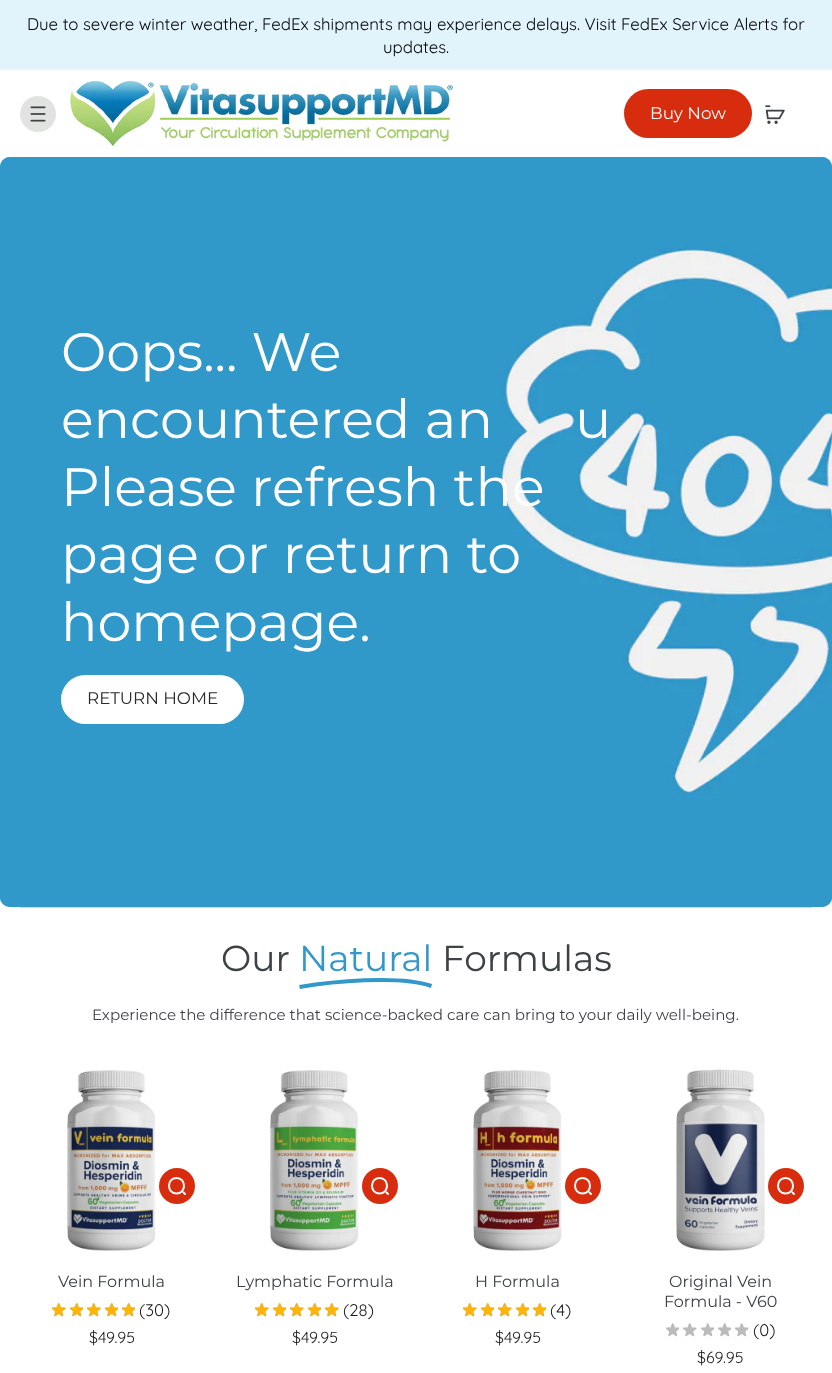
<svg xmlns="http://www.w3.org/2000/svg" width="832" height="1373">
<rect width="100%" height="100%" fill="#fff"/>
<rect width="832" height="70" fill="#e1f4fc"/>
<text x="27" y="30" style="font-family:Quicksand;font-size:16.8px;fill:#000">Due to severe winter weather, FedEx shipments may experience delays. Visit FedEx Service Alerts for</text>
<text x="383" y="53" style="font-family:Quicksand;font-size:16.8px;fill:#000">updates.</text>
<circle cx="38" cy="114" r="18" fill="#e1e3e1"/>
<image x="30" y="106" width="16" height="16" href="media/1.png"/>
<image x="70" y="80" width="383" height="66" href="media/2.png"/>
<rect x="624" y="89" width="128" height="49" rx="24.5" fill="#d72c0d"/>
<text x="650" y="119" style="font-family:Montserrat;font-size:16.8px;fill:#fff">Buy Now</text>
<image x="765" y="105" width="20" height="19" href="media/3.png"/>
<rect y="157" width="832" height="750" rx="10" fill="#3198c9"/>
<image x="0" y="157" width="832" height="750" href="media/4.png"/>
<text x="61" y="371" style="font-family:Montserrat;font-size:54px;fill:#fff">Oops... We</text>
<text x="61" y="438" style="font-family:Montserrat;font-size:54px;fill:#fff">encountered an</text>
<text x="575" y="438" style="font-family:Montserrat;font-size:54px;fill:#fff">u</text>
<text x="61" y="506" style="font-family:Montserrat;font-size:54px;fill:#fff">Please refresh the</text>
<text x="61" y="573" style="font-family:Montserrat;font-size:54px;fill:#fff">page or return to</text>
<text x="61" y="641" style="font-family:Montserrat;font-size:54px;fill:#fff">homepage.</text>
<rect x="61" y="675" width="183" height="49" rx="24.5" fill="#fff"/>
<text x="87" y="704" style="font-family:Montserrat;font-size:16.8px;fill:#282928">RETURN HOME</text>
<rect x="20" y="907" width="792" height="1" fill="#d2d5d9"/>
<text x="221" y="971" style="font-family:Montserrat;font-size:36px;fill:#3d4246">Our</text>
<text x="299" y="971" style="font-family:Montserrat;font-size:36px;fill:#3198c9">Natural</text>
<path d="M299.5 987c30-5 99-12.5 132-1" fill="none" stroke="#3198c9" stroke-width="4"/>
<text x="442" y="971" style="font-family:Montserrat;font-size:36px;fill:#3d4246">Formulas</text>
<text x="92" y="1020" style="font-family:Montserrat;font-size:15.1px;fill:#3d4246">Experience the difference that science-backed care can bring to your daily well-being.</text>
<image x="67" y="1070" width="89" height="181" href="media/5.png"/>
<circle cx="177" cy="1186" r="18" fill="#d72c0d"/>
<path d="M176.5 1193.5c10 0 10-15.5 0-15.5c-10 0-10 15.5 0 15.5zm8.5 .5l-1.5-1.5" fill="none" stroke="#fff" stroke-width="2" stroke-linecap="round" stroke-linejoin="round"/>
<text x="58" y="1287" style="font-family:Montserrat;font-size:16px;fill:#3d4246">Vein Formula</text>
<image x="52" y="1303" width="14" height="14" href="media/6.png"/>
<image x="70" y="1303" width="13" height="14" href="media/7.png"/>
<image x="87" y="1303" width="14" height="14" href="media/6.png"/>
<image x="105" y="1303" width="13" height="14" href="media/7.png"/>
<image x="122" y="1303" width="13" height="14" href="media/7.png"/>
<text x="139" y="1316" style="font-family:Quicksand;font-size:16.8px;fill:#1a1b18">(30)</text>
<text x="89" y="1343" style="font-family:Quicksand;font-size:16px;fill:#1a1b18">$49.95</text>
<image x="270" y="1070" width="89" height="181" href="media/8.png"/>
<circle cx="380" cy="1186" r="18" fill="#d72c0d"/>
<path d="M379.5 1193.5c10 0 10-15.5 0-15.5c-10 0-10 15.5 0 15.5zm8.5 .5l-1.5-1.5" fill="none" stroke="#fff" stroke-width="2" stroke-linecap="round" stroke-linejoin="round"/>
<text x="236" y="1287" style="font-family:Montserrat;font-size:16px;fill:#3d4246">Lymphatic Formula</text>
<image x="255" y="1303" width="14" height="14" href="media/6.png"/>
<image x="273" y="1303" width="13" height="14" href="media/7.png"/>
<image x="290" y="1303" width="14" height="14" href="media/6.png"/>
<image x="308" y="1303" width="13" height="14" href="media/7.png"/>
<image x="325" y="1303" width="14" height="14" href="media/6.png"/>
<text x="343" y="1316" style="font-family:Quicksand;font-size:16.8px;fill:#1a1b18">(28)</text>
<text x="292" y="1343" style="font-family:Quicksand;font-size:16px;fill:#1a1b18">$49.95</text>
<image x="473" y="1070" width="89" height="181" href="media/9.png"/>
<circle cx="583" cy="1186" r="18" fill="#d72c0d"/>
<path d="M582.5 1193.5c10 0 10-15.5 0-15.5c-10 0-10 15.5 0 15.5zm8.5 .5l-1.5-1.5" fill="none" stroke="#fff" stroke-width="2" stroke-linecap="round" stroke-linejoin="round"/>
<text x="475" y="1287" style="font-family:Montserrat;font-size:16px;fill:#3d4246">H Formula</text>
<image x="463" y="1303" width="14" height="14" href="media/6.png"/>
<image x="481" y="1303" width="13" height="14" href="media/7.png"/>
<image x="498" y="1303" width="14" height="14" href="media/6.png"/>
<image x="516" y="1303" width="13" height="14" href="media/7.png"/>
<image x="533" y="1303" width="13" height="14" href="media/7.png"/>
<text x="550" y="1316" style="font-family:Quicksand;font-size:16.8px;fill:#1a1b18">(4)</text>
<text x="495" y="1343" style="font-family:Quicksand;font-size:16px;fill:#1a1b18">$49.95</text>
<image x="676" y="1069" width="89" height="182" href="media/10.png"/>
<circle cx="786" cy="1186" r="18" fill="#d72c0d"/>
<path d="M785.5 1193.5c10 0 10-15.5 0-15.5c-10 0-10 15.5 0 15.5zm8.5 .5l-1.5-1.5" fill="none" stroke="#fff" stroke-width="2" stroke-linecap="round" stroke-linejoin="round"/>
<text x="669" y="1287" style="font-family:Montserrat;font-size:16px;fill:#3d4246">Original Vein</text>
<text x="664" y="1307" style="font-family:Montserrat;font-size:16px;fill:#3d4246">Formula - V60</text>
<image x="666" y="1323" width="13" height="14" href="media/11.png"/>
<image x="683" y="1323" width="14" height="14" href="media/12.png"/>
<image x="701" y="1323" width="13" height="14" href="media/11.png"/>
<image x="718" y="1323" width="13" height="14" href="media/11.png"/>
<image x="735" y="1323" width="14" height="14" href="media/12.png"/>
<text x="753" y="1336" style="font-family:Quicksand;font-size:16.8px;fill:#1a1b18">(0)</text>
<text x="697" y="1363" style="font-family:Quicksand;font-size:16px;fill:#1a1b18">$69.95</text>
</svg>
